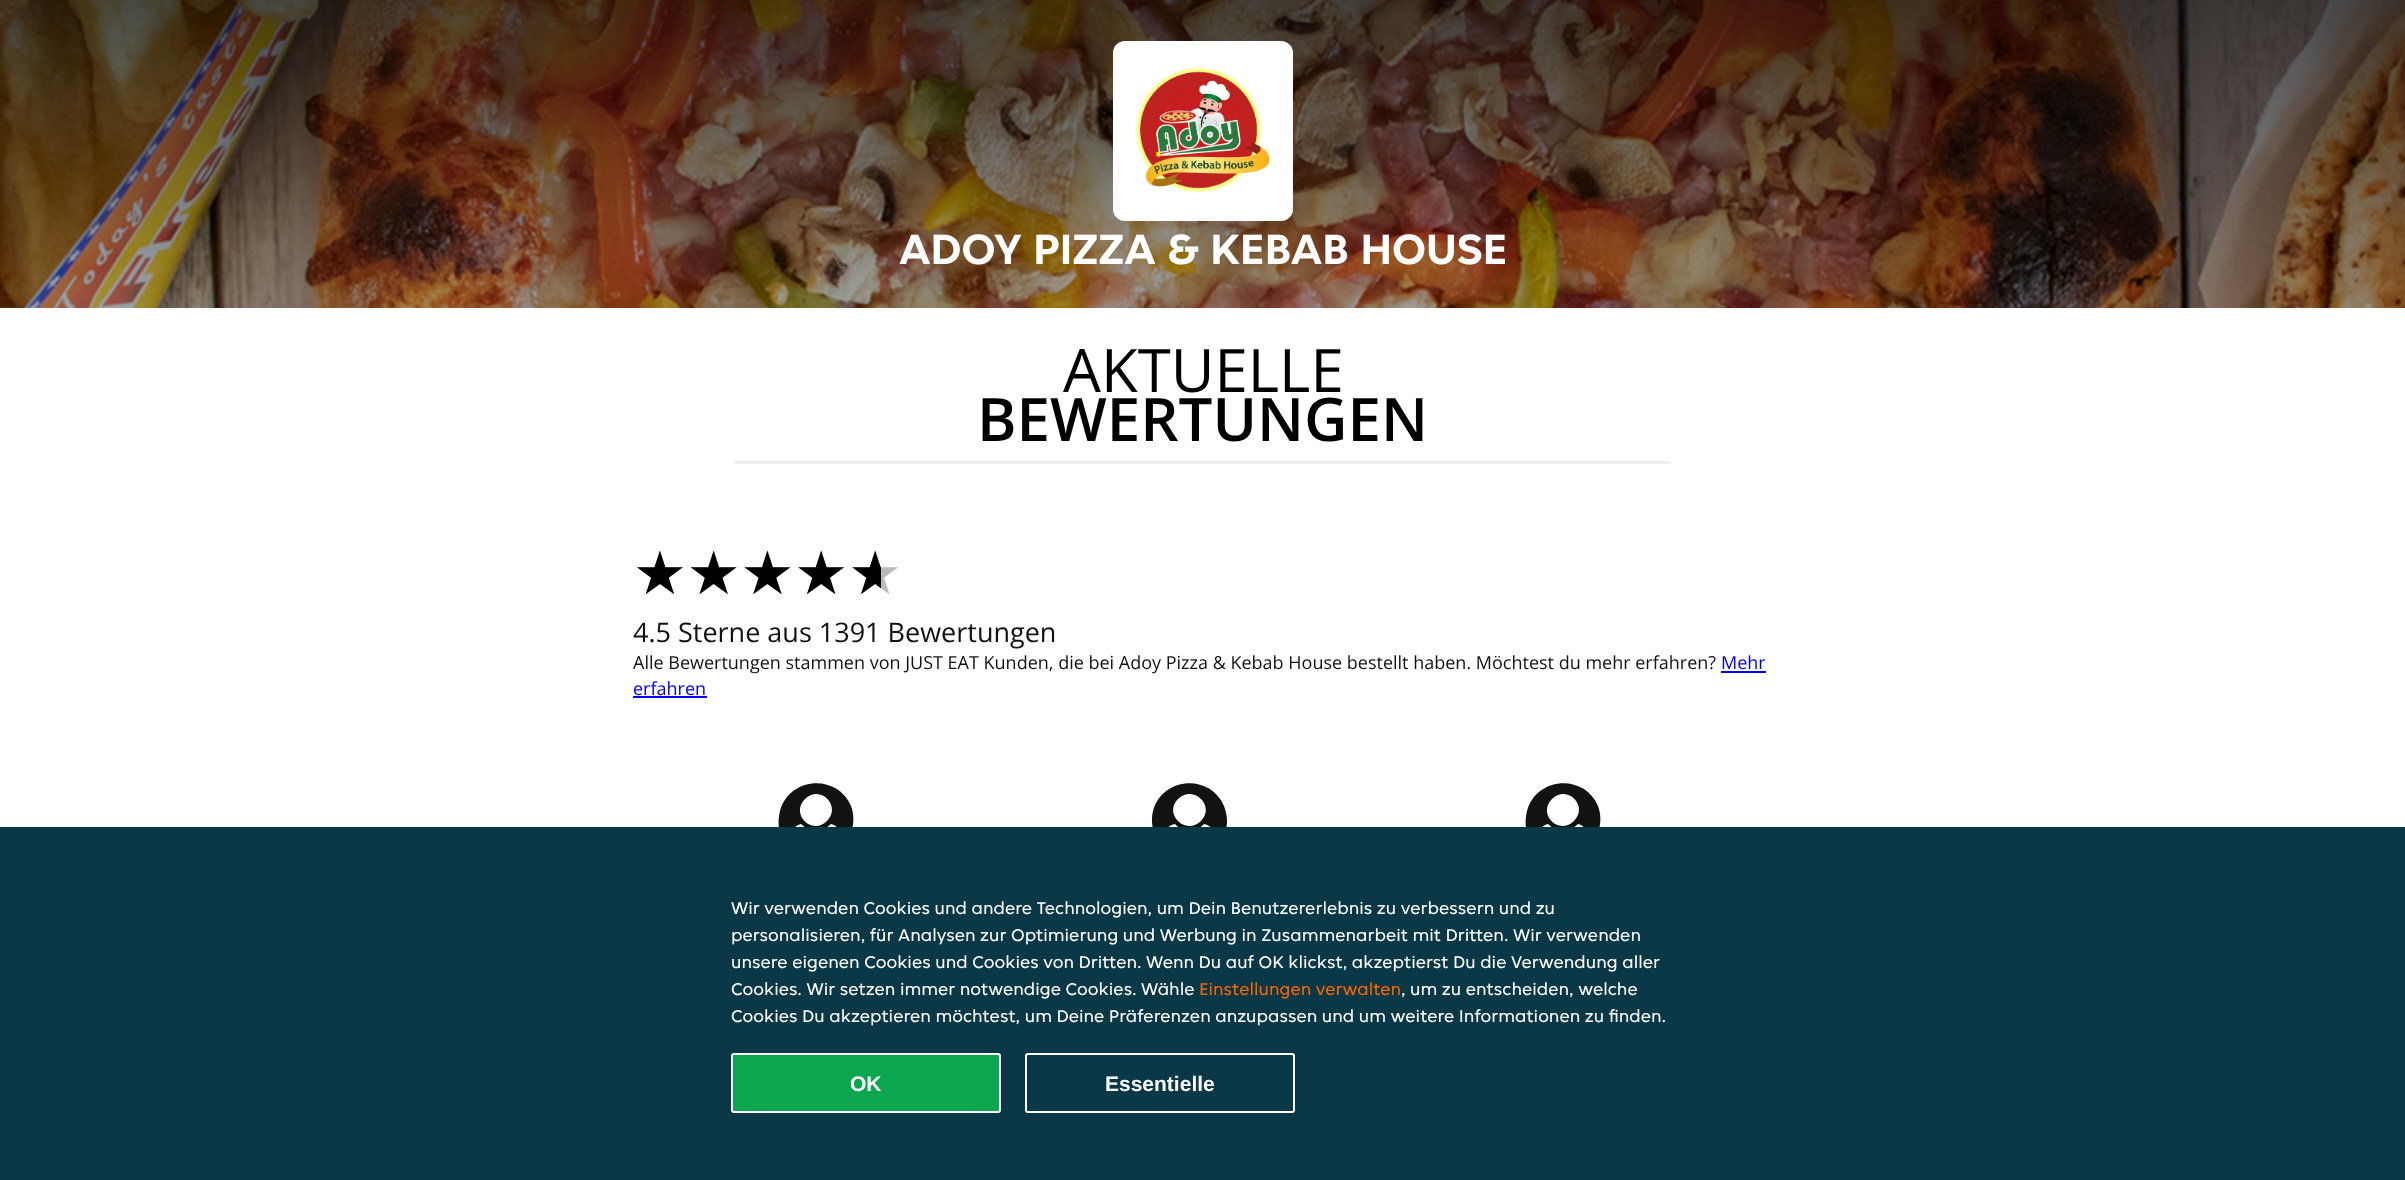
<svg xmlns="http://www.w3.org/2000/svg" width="2405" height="1180">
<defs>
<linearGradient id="g1" gradientUnits="userSpaceOnUse" x1="1203" y1="0" x2="1203" y2="750"><stop offset="0" stop-color="#000" stop-opacity="0.7"/><stop offset="0.33" stop-color="#000" stop-opacity="0.4"/><stop offset="0.67" stop-color="#000" stop-opacity="0.2"/><stop offset="1" stop-color="#000" stop-opacity="0"/></linearGradient>
<clipPath id="clip1"><rect x="633" y="542" width="248" height="60"/></clipPath>
</defs>
<rect width="100%" height="100%" fill="#fff"/>
<image x="0" y="0" width="2405" height="308" href="media/1.png"/>
<rect width="2405" height="308" fill="url(#g1)"/>
<rect x="1113" y="41" width="180" height="180" rx="12" fill="#fff"/>
<image x="1135" y="68" width="138" height="124" href="media/2.png"/>
<text x="899" y="264" style="font-family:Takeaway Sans;font-size:45px;font-weight:bold;fill:#fff">ADOY PIZZA &amp; KEBAB HOUSE</text>
<text x="1063" y="392" style="font-family:Open Sans;font-size:60px;fill:#000">AKTUELLE</text>
<text x="977" y="441" style="font-family:Open Sans;font-size:60px;font-weight:600;fill:#000">BEWERTUNGEN</text>
<rect x="735" y="461" width="936" height="3" fill="#eee"/>
<text x="633" y="594" style="font-family:DejaVu Sans;font-size:60px;fill:#bbb">★★★★★</text>
<g clip-path="url(#clip1)">
<text x="633" y="594" style="font-family:DejaVu Sans;font-size:60px;fill:#000">★★★★★</text>
</g>
<text x="633" y="642" style="font-family:Open Sans;font-size:27px;fill:#121212">4.5 Sterne aus 1391 Bewertungen</text>
<text x="633" y="669" style="font-family:Open Sans;font-size:18px;fill:#121212">Alle Bewertungen stammen von JUST EAT Kunden, die bei Adoy Pizza &amp; Kebab House bestellt haben. Möchtest du mehr erfahren?</text>
<text x="1721" y="669" style="font-family:Open Sans;font-size:18px;fill:#00e">Mehr</text>
<rect x="1721" y="671" width="45" height="2" fill="#00e"/>
<text x="633" y="695" style="font-family:Open Sans;font-size:18px;fill:#00e">erfahren</text>
<rect x="633" y="696" width="74" height="2" fill="#00e"/>
<path d="M842 839c-1-6-4-14-11-15c-8 8-22 8-30 0c-7 1-10 9-11 15c12 18 40 18 52 0zm-15-18c15-15-7-37-22-22c-15 15 7 37 22 22zm24-15c3 8 3 16 1 24c-9 35-57 38-71 5c-3-7-3-16-1-24c9-34 57-38 71-5z" fill="#121212"/>
<path d="M1216 839c-1-6-4-14-12-15c-7 8-22 8-29 0c-8 1-11 9-12 15c13 18 40 18 53 0zm-15-18c15-15-8-37-23-22c-15 15 8 37 23 22zm23-15c3 8 4 16 2 24c-9 35-57 38-71 5c-3-7-4-16-2-24c9-34 57-38 71-5z" fill="#121212"/>
<path d="M1589 839c-1-6-4-14-11-15c-8 8-22 8-30 0c-7 1-10 9-11 15c12 18 40 18 52 0zm-15-18c15-15-7-37-22-22c-15 15 7 37 22 22zm24-15c3 8 3 16 1 24c-9 35-57 38-71 5c-3-7-3-16-1-24c9-34 57-38 71-5z" fill="#121212"/>
<rect y="827" width="2405" height="353" fill="#0a3847"/>
<text x="731" y="914" style="font-family:Takeaway Sans;font-size:18px;fill:#fff">Wir verwenden Cookies und andere Technologien, um Dein Benutzererlebnis zu verbessern und zu</text>
<text x="731" y="941" style="font-family:Takeaway Sans;font-size:18px;fill:#fff">personalisieren, für Analysen zur Optimierung und Werbung in Zusammenarbeit mit Dritten. Wir verwenden</text>
<text x="731" y="968" style="font-family:Takeaway Sans;font-size:18px;fill:#fff">unsere eigenen Cookies und Cookies von Dritten. Wenn Du auf OK klickst, akzeptierst Du die Verwendung aller</text>
<text x="731" y="995" style="font-family:Takeaway Sans;font-size:18px;fill:#fff">Cookies. Wir setzen immer notwendige Cookies. Wähle</text>
<text x="1199" y="995" style="font-family:Takeaway Sans;font-size:18px;fill:#f86600">Einstellungen verwalten</text>
<text x="1401" y="995" style="font-family:Takeaway Sans;font-size:18px;fill:#fff">, um zu entscheiden, welche</text>
<text x="731" y="1022" style="font-family:Takeaway Sans;font-size:18px;fill:#fff">Cookies Du akzeptieren möchtest, um Deine Präferenzen anzupassen und um weitere Informationen zu finden.</text>
<rect x="732" y="1054" width="268" height="58" rx="2" fill="#0ca64f" stroke="#fff" stroke-width="2"/>
<text x="850" y="1091" style="font-family:Liberation Sans;font-size:21px;font-weight:bold;fill:#fff">OK</text>
<rect x="1026" y="1054" width="268" height="58" rx="2" fill="none" stroke="#fff" stroke-width="2"/>
<text x="1105" y="1091" style="font-family:Liberation Sans;font-size:21px;font-weight:bold;fill:#fff">Essentielle</text>
</svg>
